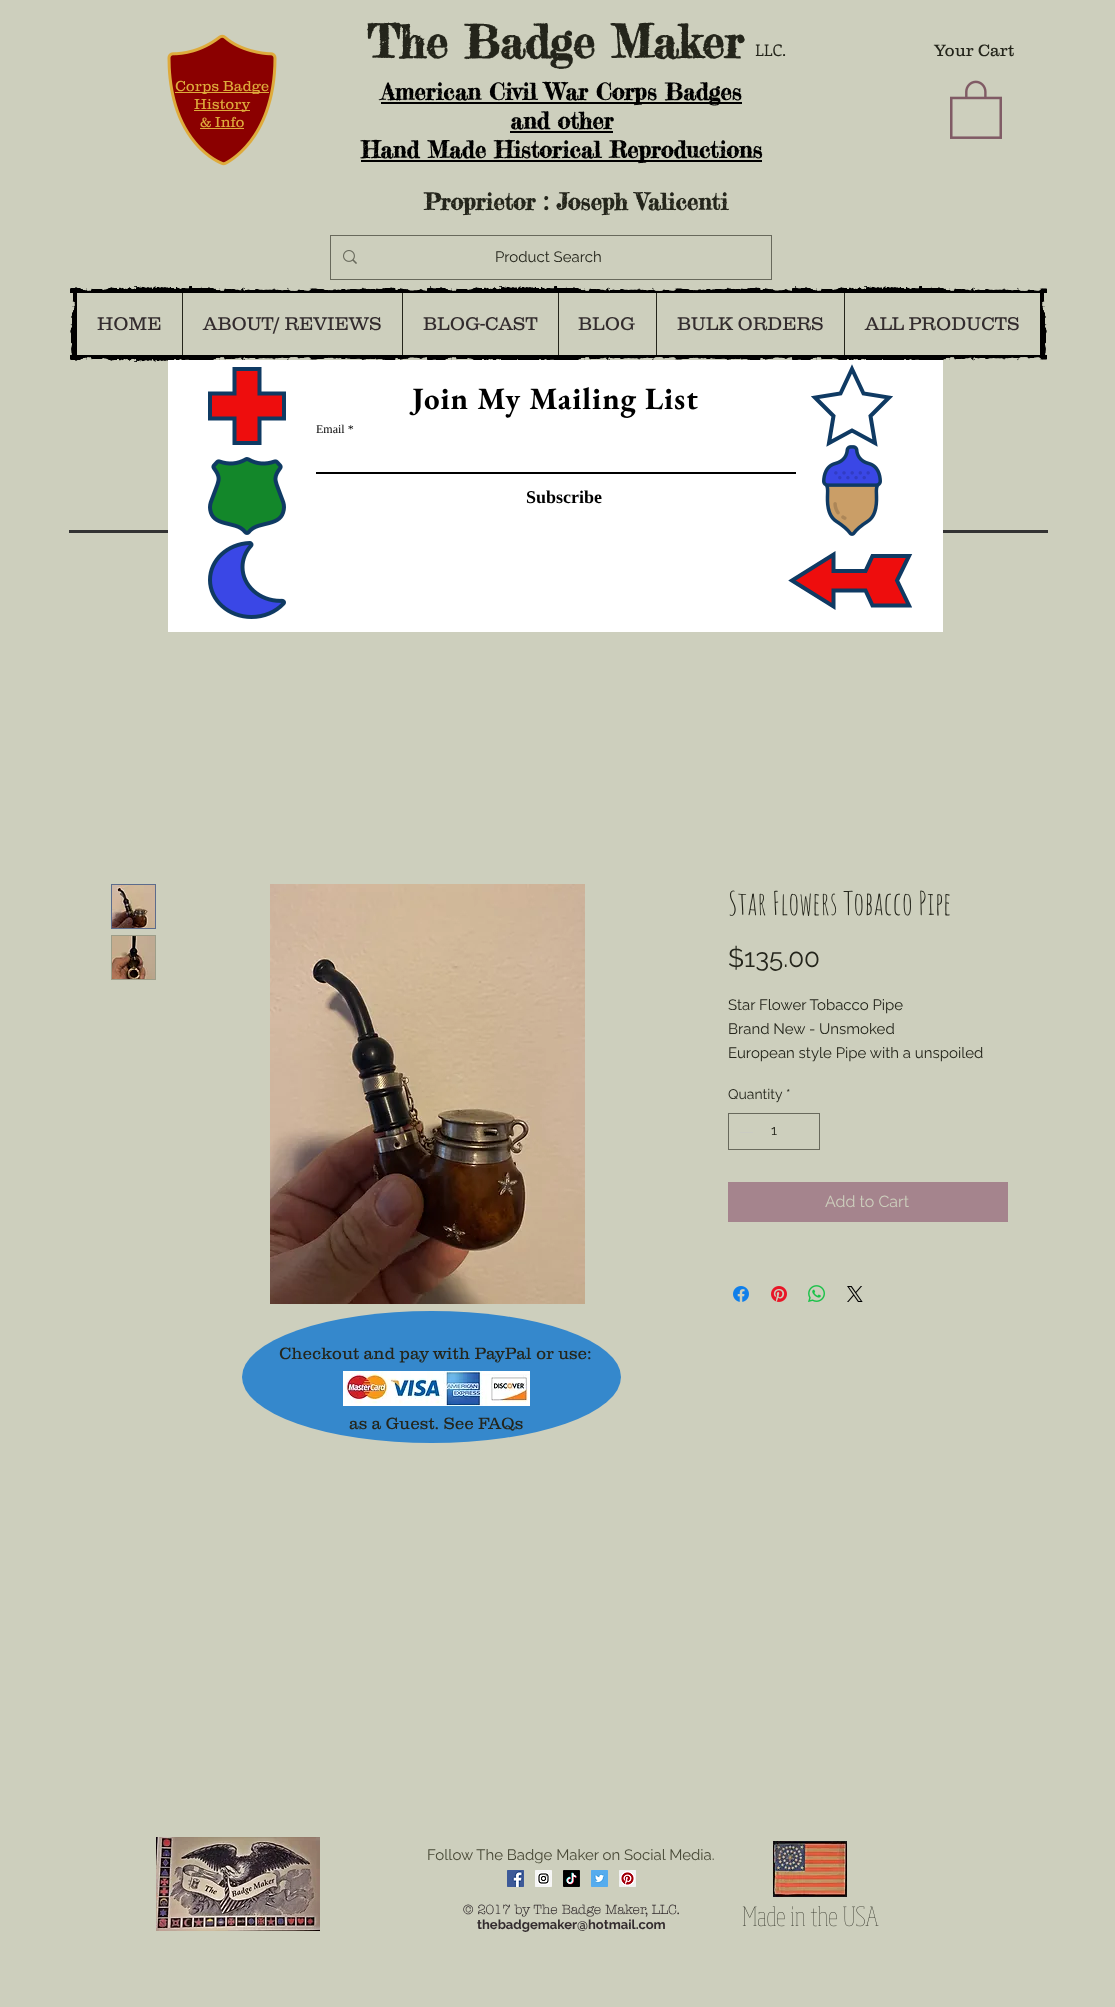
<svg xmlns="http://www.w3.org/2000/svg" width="1115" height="2007">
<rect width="100%" height="100%" fill="#cdcfbd"/>
<image x="167" y="34" width="110" height="132" href="media/1.png"/>
<text x="367" y="58" style="font-family:Fredericka the Great;font-size:45px;font-weight:bold;fill:#24251b">The Badge Maker</text>
<text x="755" y="56" style="font-family:Enriqueta;font-size:16px;fill:#24251b">LLC.</text>
<text x="934" y="56" style="font-family:'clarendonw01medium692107';font-size:17px;font-weight:300;fill:#24251b">Your Cart</text>
<rect x="175" y="92" width="94" height="1" fill="#deab3c"/>
<text x="175" y="91" style="font-family:'clarendonw01medium692107';font-size:15px;font-weight:300;fill:#deab3c">Corps Badge</text>
<rect x="194" y="110" width="56" height="1" fill="#deab3c"/>
<text x="194" y="109" style="font-family:'clarendonw01medium692107';font-size:15px;font-weight:300;fill:#deab3c">History</text>
<text x="200" y="127" style="font-family:'clarendonw01medium692107';font-size:15px;font-weight:300;fill:#deab3c">&amp; Info</text>
<rect x="200" y="128" width="44" height="1" fill="#deab3c"/>
<rect x="381" y="102" width="361" height="2" fill="#000"/>
<text x="381" y="100" style="font-family:Fredericka the Great;font-size:23px;font-weight:bold;fill:#000">American Civil War Corps Badges</text>
<text x="510" y="129" style="font-family:Fredericka the Great;font-size:23px;font-weight:bold;fill:#000">and other</text>
<rect x="510" y="131" width="103" height="2" fill="#000"/>
<rect x="361" y="160" width="401" height="2" fill="#000"/>
<text x="361" y="158" style="font-family:Fredericka the Great;font-size:23px;font-weight:bold;fill:#000">Hand Made Historical Reproductions</text>
<image x="950" y="80" width="52" height="59" href="media/2.png"/>
<text x="424" y="210" style="font-family:Fredericka the Great;font-size:23px;font-weight:bold;fill:#24251b">Proprietor : Joseph Valicenti</text>
<rect x="330.5" y="235.5" width="441" height="44" fill="none" stroke="#68695c"/>
<image x="343" y="250" width="14" height="14" href="media/3.png"/>
<text x="495" y="262" style="font-family:Raleway;font-size:15px;fill:#24251b">Product Search</text>
<image x="70" y="286" width="977" height="7" href="media/4.png"/>
<image x="70" y="293" width="7" height="62" href="media/5.png"/>
<text x="97" y="330" style="font-family:'clarendonw01medium692107';font-size:19px;font-weight:300;fill:#332c2e">HOME</text>
<rect x="182" y="293" width="1" height="62" fill="#24251b"/>
<text x="203" y="330" style="font-family:'clarendonw01medium692107';font-size:19px;font-weight:300;fill:#332c2e">ABOUT/ REVIEWS</text>
<rect x="402" y="293" width="1" height="62" fill="#24251b"/>
<text x="423" y="330" style="font-family:'clarendonw01medium692107';font-size:19px;font-weight:300;fill:#332c2e">BLOG-CAST</text>
<rect x="558" y="293" width="1" height="62" fill="#24251b"/>
<text x="578" y="330" style="font-family:'clarendonw01medium692107';font-size:19px;font-weight:300;fill:#332c2e">BLOG</text>
<rect x="656" y="293" width="1" height="62" fill="#24251b"/>
<text x="677" y="330" style="font-family:'clarendonw01medium692107';font-size:19px;font-weight:300;fill:#332c2e">BULK ORDERS</text>
<rect x="844" y="293" width="1" height="62" fill="#24251b"/>
<text x="865" y="330" style="font-family:'clarendonw01medium692107';font-size:19px;font-weight:300;fill:#332c2e">ALL PRODUCTS</text>
<image x="1040" y="293" width="7" height="62" href="media/6.png"/>
<image x="70" y="355" width="977" height="7" href="media/7.png"/>
<rect x="69" y="530" width="979" height="3" fill="#333"/>
<rect x="168" y="360" width="775" height="272" fill="#fff"/>
<path d="M284 418v-24h-25v-25h-24v25h-25v24h25v25h24v-25z" fill="#ee0d0d"/>
<path d="M284 418.5v-25h-24.5v-24.5h-25v24.5h-24.5v25h24.5v24.5h25v-24.5z" fill="none" stroke="#0f3a63" stroke-width="4"/>
<text x="412" y="409" style="font-family:EB Garamond;font-size:31px;font-weight:bold;letter-spacing:0.9px;fill:#000">Join My Mailing List</text>
<path d="M852 369l11.5 24.5l25.5 4l-18.5 18.5l4.5 27l-23-12.5l-23 12.5l4.5-27l-18.5-18.5l25.5-4z" fill="none" stroke="#0f3a63" stroke-width="4"/>
<text x="316" y="433" style="font-family:Liberation Serif;font-size:12px;fill:#000">Email *</text>
<rect x="316" y="472" width="480" height="2" fill="#000"/>
<image x="208" y="457" width="78" height="78" href="media/8.png"/>
<text x="526" y="503" style="font-family:Liberation Serif;font-size:18px;font-weight:bold;fill:#000">Subscribe</text>
<image x="822" y="445" width="60" height="91" href="media/9.png"/>
<image x="208" y="541" width="78" height="78" href="media/10.png"/>
<path d="M792 581l42 26v-16h31l7 15h37l-12-25l12-25h-37l-7 15h-31v-16z" fill="#ee0d0d"/>
<path d="M792 580.5l41.5 26v-16h32l7 15h36.5l-12-25l12-24.5h-36.5l-7 15h-32v-16.5z" fill="none" stroke="#0f3a63" stroke-width="4"/>
<rect x="111.5" y="884.5" width="44" height="44" fill="none" stroke="#5c6c8c"/>
<image x="112" y="885" width="43" height="43" href="media/11.png"/>
<rect x="111.5" y="935.5" width="44" height="44" fill="none" stroke="#9d9e89"/>
<image x="112" y="936" width="43" height="43" href="media/12.png"/>
<image x="270" y="884" width="315" height="420" href="media/13.png"/>
<text x="728" y="915" style="font-family:Amatic SC;font-size:32px;fill:#24251b">Star Flowers Tobacco Pipe</text>
<text x="728" y="967" style="font-family:Raleway;font-size:26px;fill:#24251b">$135.00</text>
<text x="728" y="1010" style="font-family:Raleway;font-size:15px;fill:#24251b">Star Flower Tobacco Pipe</text>
<text x="728" y="1034" style="font-family:Raleway;font-size:15px;fill:#24251b">Brand New - Unsmoked</text>
<text x="728" y="1058" style="font-family:Raleway;font-size:15px;fill:#24251b">European style Pipe with a unspoiled</text>
<text x="728" y="1099" style="font-family:Raleway;font-size:14px;fill:#24251b">Quantity</text>
<text x="786" y="1099" style="font-family:Raleway;font-size:14px;fill:#24251b">*</text>
<rect x="728.5" y="1113.5" width="91" height="36" fill="none" stroke="#68695c"/>
<rect x="740" y="1132" width="13" height="1" fill="#cacbc2"/>
<text x="771" y="1135" style="font-family:Raleway;font-size:14px;fill:#24251b">1</text>
<rect x="728" y="1182" width="280" height="40" fill="#a5848d"/>
<text x="825" y="1207" style="font-family:Raleway;font-size:16px;fill:#cdcfbd">Add to Cart</text>
<image x="733" y="1286" width="16" height="16" href="media/14.png"/>
<image x="771" y="1286" width="16" height="16" href="media/15.png"/>
<image x="808" y="1285" width="17" height="17" href="media/16.png"/>
<image x="847" y="1286" width="16" height="16" href="media/17.png"/>
<ellipse cx="431.5" cy="1377" rx="189.5" ry="66" fill="#3588cc"/>
<text x="279" y="1359" style="font-family:'clarendonw01medium692107';font-size:17px;font-weight:300;fill:#24251b">Checkout and pay with PayPal or use:</text>
<image x="343" y="1371" width="187" height="35" href="media/18.png"/>
<text x="349" y="1429" style="font-family:'clarendonw01medium692107';font-size:17px;font-weight:300;fill:#24251b">as a Guest. See FAQs</text>
<image x="156" y="1837" width="164" height="94" href="media/19.png"/>
<text x="427" y="1860" style="font-family:Raleway;font-size:15px;fill:#484936">Follow The Badge Maker on Social Media.</text>
<image x="773" y="1841" width="74" height="56" href="media/20.png"/>
<image x="507" y="1870" width="17" height="17" href="media/21.png"/>
<image x="535" y="1870" width="17" height="17" href="media/22.png"/>
<image x="563" y="1870" width="17" height="17" href="media/23.png"/>
<image x="591" y="1870" width="17" height="17" href="media/24.png"/>
<image x="619" y="1870" width="17" height="17" href="media/25.png"/>
<text x="463" y="1914" style="font-family:'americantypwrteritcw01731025';font-size:13px;font-weight:bold;fill:#332c2e">© 2017 by The Badge Maker, LLC.</text>
<text x="477" y="1929" style="font-family:Raleway;font-size:13px;font-weight:bold;fill:#332c2e">thebadgemaker@hotmail.com</text>
<image x="742" y="1906" width="137" height="21" href="media/26.png"/>
</svg>
